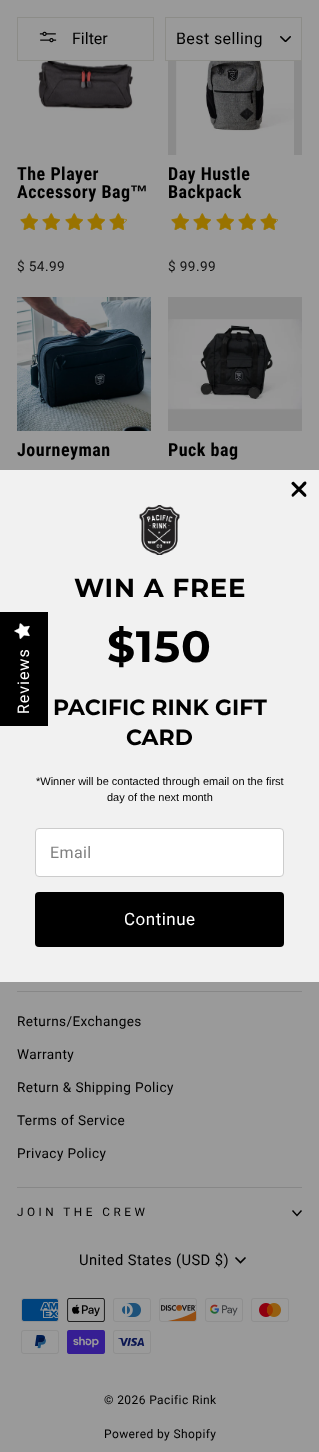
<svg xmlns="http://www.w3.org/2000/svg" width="319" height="1452">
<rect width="100%" height="100%" fill="#9a9a9a"/>
<rect x="17.5" y="17.5" width="136" height="43" fill="none" stroke="#8c8c88"/>
<image x="39" y="31" width="18" height="12" href="media/1.png"/>
<text x="72" y="44" style="font-family:Roboto;font-size:16px;fill:#000">Filter</text>
<image x="280" y="36" width="11" height="6" href="media/2.png"/>
<rect x="165.5" y="17.5" width="136" height="43" fill="none" stroke="#8c8c88"/>
<text x="176" y="44" style="font-family:Roboto;font-size:16px;letter-spacing:0.4px;fill:#000">Best selling</text>
<image x="17" y="61" width="134" height="94" href="media/3.png"/>
<text x="17" y="180" style="font-family:Roboto Condensed;font-size:18px;font-weight:bold;letter-spacing:0.5px;fill:#000">The Player</text>
<text x="17" y="198" style="font-family:Roboto Condensed;font-size:18px;font-weight:bold;letter-spacing:0.5px;fill:#000">Accessory Bag</text>
<text x="130" y="198" style="font-family:Liberation Sans;font-size:18px;font-weight:bold;letter-spacing:0.5px;fill:#000">™</text>
<image x="20" y="213" width="18" height="17" href="media/4.png"/>
<image x="42" y="213" width="18" height="17" href="media/4.png"/>
<image x="65" y="213" width="18" height="17" href="media/4.png"/>
<image x="87" y="213" width="18" height="17" href="media/4.png"/>
<image x="109" y="213" width="18" height="17" href="media/5.png"/>
<text x="17" y="271" style="font-family:Roboto;font-size:13.6px;letter-spacing:0.4px;fill:#111">$ 54.99</text>
<rect x="168" y="61" width="134" height="94" fill="#8a8a8a"/>
<image x="176" y="61" width="118" height="94" href="media/6.png"/>
<text x="168" y="180" style="font-family:Roboto Condensed;font-size:18px;font-weight:bold;letter-spacing:0.5px;fill:#000">Day Hustle</text>
<text x="168" y="198" style="font-family:Roboto Condensed;font-size:18px;font-weight:bold;letter-spacing:0.5px;fill:#000">Backpack</text>
<image x="171" y="213" width="18" height="17" href="media/4.png"/>
<image x="193" y="213" width="18" height="17" href="media/4.png"/>
<image x="216" y="213" width="18" height="17" href="media/4.png"/>
<image x="238" y="213" width="18" height="17" href="media/4.png"/>
<image x="260" y="213" width="18" height="17" href="media/7.png"/>
<text x="168" y="271" style="font-family:Roboto;font-size:13.6px;letter-spacing:0.4px;fill:#111">$ 99.99</text>
<image x="17" y="297" width="134" height="134" href="media/8.png"/>
<text x="17" y="456" style="font-family:Roboto Condensed;font-size:18px;font-weight:bold;letter-spacing:0.5px;fill:#000">Journeyman</text>
<rect x="168" y="297" width="134" height="134" fill="#8a8a8a"/>
<image x="168" y="319" width="134" height="91" href="media/9.png"/>
<text x="168" y="456" style="font-family:Roboto Condensed;font-size:18px;font-weight:bold;letter-spacing:0.5px;fill:#000">Puck bag</text>
<rect y="470" width="319" height="512" fill="#f1f1f1"/>
<rect y="612" width="48" height="114" fill="#000"/>
<image x="14" y="623" width="16" height="16" href="media/10.png"/>
<text x="29" y="714" transform="rotate(-90 29 714)" style="font-family:Roboto;font-size:16px;letter-spacing:1px;fill:#fff">Reviews</text>
<rect x="17" y="991" width="285" height="1" fill="#878787"/>
<text x="17" y="1026" style="font-family:Roboto;font-size:13.6px;letter-spacing:0.4px;fill:#000">Returns/Exchanges</text>
<text x="17" y="1059" style="font-family:Roboto;font-size:13.6px;letter-spacing:0.4px;fill:#000">Warranty</text>
<text x="17" y="1092" style="font-family:Roboto;font-size:13.6px;letter-spacing:0.4px;fill:#000">Return &amp; Shipping Policy</text>
<text x="17" y="1125" style="font-family:Roboto;font-size:13.6px;letter-spacing:0.4px;fill:#000">Terms of Service</text>
<text x="17" y="1158" style="font-family:Roboto;font-size:13.6px;letter-spacing:0.4px;fill:#000">Privacy Policy</text>
<rect x="17" y="1187" width="285" height="1" fill="#878787"/>
<text x="17" y="1216" style="font-family:Roboto;font-size:11.75px;letter-spacing:3.5px;fill:#000">JOIN THE CREW</text>
<path d="M292.5 1210.5l4.5 5l4.5-5" fill="none" stroke="#000" stroke-width="1.4"/>
<text x="79" y="1265" style="font-family:Roboto;font-size:14.75px;letter-spacing:0.4px;fill:#000">United States (USD $)</text>
<path d="M235.5 1257.5l5 5l5-5" fill="none" stroke="#000" stroke-width="1.6"/>
<image x="21" y="1298" width="38" height="24" href="media/11.png"/>
<image x="67" y="1298" width="38" height="24" href="media/12.png"/>
<image x="113" y="1298" width="38" height="24" href="media/13.png"/>
<image x="159" y="1298" width="38" height="24" href="media/14.png"/>
<image x="205" y="1298" width="38" height="24" href="media/15.png"/>
<image x="251" y="1298" width="38" height="24" href="media/16.png"/>
<image x="21" y="1330" width="38" height="24" href="media/17.png"/>
<image x="67" y="1330" width="38" height="24" href="media/18.png"/>
<image x="113" y="1330" width="38" height="24" href="media/19.png"/>
<text x="104" y="1404" style="font-family:Roboto;font-size:12px;letter-spacing:0.4px;fill:#000">© 2026 Pacific Rink</text>
<text x="104" y="1438" style="font-family:Roboto;font-size:12px;letter-spacing:0.4px;fill:#000">Powered by Shopify</text>
<path d="M294 482l10 10c1 1 3.5 3 2 4.5c-1.5 1.5-3.5-1.5-4-2l-10.5-10.5c-.5-1.5 1.5-3 2.5-2z" fill="#000"/>
<path d="M292 494l10-10c.5-.5 2.5-3.5 4-2c1.5 1.5-1 3.5-2 4.5l-10.5 10c-1.5 1-2.5-1-1.5-2.5z" fill="#000"/>
<image x="139" y="505" width="41" height="50" href="media/20.png"/>
<text x="74" y="597" style="font-family:Montserrat;font-size:26px;font-weight:bold;letter-spacing:0.75px;fill:#000">WIN A FREE</text>
<text x="107" y="662" style="font-family:Montserrat;font-size:44px;font-weight:bold;letter-spacing:1px;fill:#000">$150</text>
<text x="53" y="715" style="font-family:Montserrat;font-size:22px;font-weight:bold;fill:#000">PACIFIC RINK GIFT</text>
<text x="126" y="745" style="font-family:Montserrat;font-size:22px;font-weight:bold;fill:#000">CARD</text>
<text x="36" y="785" style="font-family:Liberation Sans;font-size:11px;fill:#000">*Winner will be contacted through email on the first</text>
<text x="107" y="801" style="font-family:Liberation Sans;font-size:11px;fill:#000">day of the next month</text>
<rect x="35.5" y="828.5" width="248" height="48" rx="3.5" fill="#fff" stroke="#ccc"/>
<text x="50" y="858" style="font-family:Roboto;font-size:16px;letter-spacing:0.4px;fill:#808080">Email</text>
<rect x="35" y="892" width="249" height="55" rx="4" fill="#000"/>
<text x="124" y="925" style="font-family:Roboto;font-size:17px;letter-spacing:0.5px;fill:#fff">Continue</text>
</svg>
